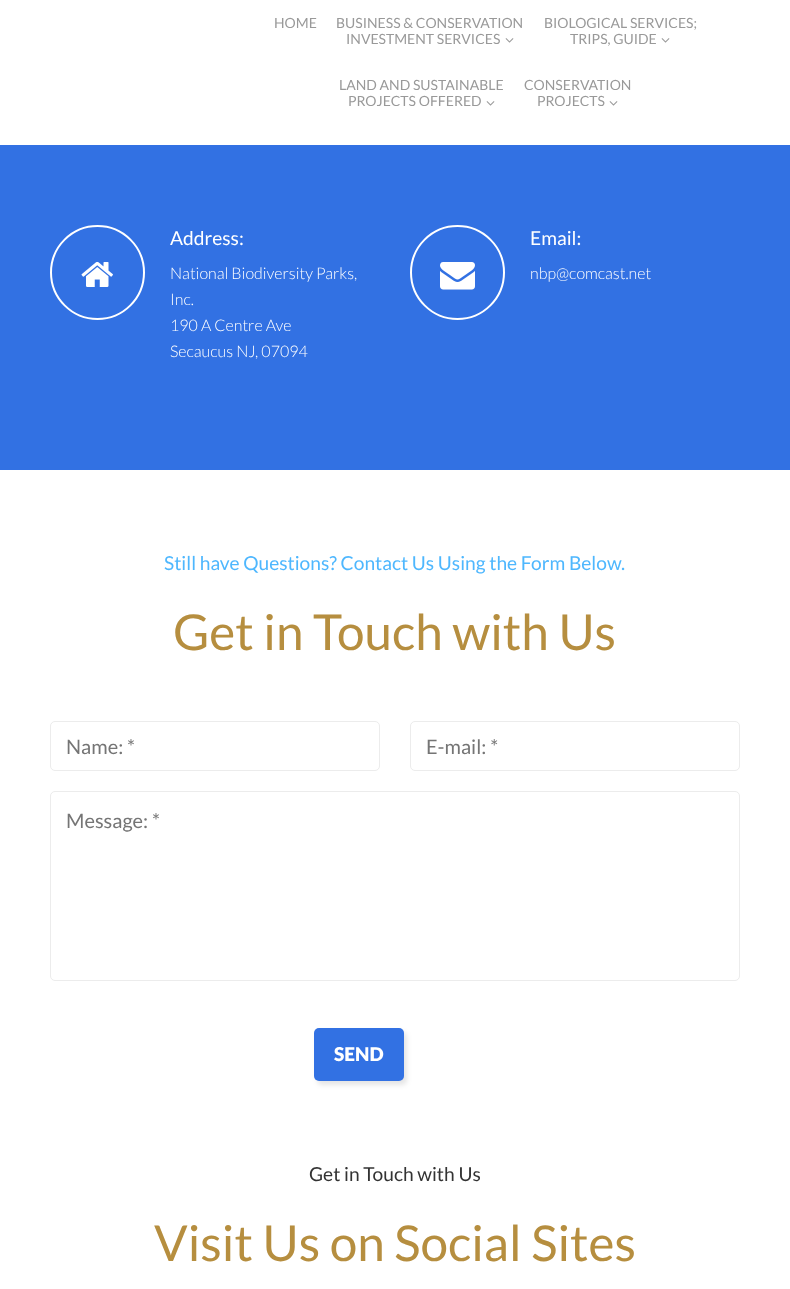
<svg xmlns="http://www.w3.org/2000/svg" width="790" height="1289">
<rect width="100%" height="100%" fill="#fff"/>
<text x="274" y="28" style="font-family:Lato;font-size:14px;fill:#999">HOME</text>
<text x="336" y="28" style="font-family:Lato;font-size:14px;fill:#999">BUSINESS &amp; CONSERVATION</text>
<text x="346" y="44" style="font-family:Lato;font-size:14px;fill:#999">INVESTMENT SERVICES</text>
<image x="505" y="38" width="9" height="5" href="media/1.png"/>
<text x="544" y="28" style="font-family:Lato;font-size:14px;fill:#999">BIOLOGICAL SERVICES;</text>
<text x="570" y="44" style="font-family:Lato;font-size:14px;fill:#999">TRIPS, GUIDE</text>
<image x="661" y="38" width="9" height="5" href="media/1.png"/>
<text x="339" y="90" style="font-family:Lato;font-size:14px;fill:#999">LAND AND SUSTAINABLE</text>
<text x="348" y="106" style="font-family:Lato;font-size:14px;fill:#999">PROJECTS OFFERED</text>
<image x="486" y="101" width="9" height="5" href="media/1.png"/>
<text x="524" y="90" style="font-family:Lato;font-size:14px;fill:#999">CONSERVATION</text>
<text x="537" y="106" style="font-family:Lato;font-size:14px;fill:#999">PROJECTS</text>
<image x="609" y="101" width="9" height="5" href="media/1.png"/>
<rect y="145" width="790" height="325" fill="#3271e3"/>
<circle cx="97.5" cy="272.5" r="46.5" fill="none" stroke="#fff" stroke-width="2"/>
<image x="81" y="261" width="32" height="26" href="media/2.png"/>
<text x="170" y="245" style="font-family:Lato;font-size:19.2px;fill:#fff">Address:</text>
<text x="170" y="279" style="font-family:Lato;font-size:16px;font-weight:300;fill:#fff">National Biodiversity Parks,</text>
<text x="170" y="305" style="font-family:Lato;font-size:16px;font-weight:300;fill:#fff">Inc.</text>
<text x="170" y="331" style="font-family:Lato;font-size:16px;font-weight:300;fill:#fff">190 A Centre Ave</text>
<text x="170" y="357" style="font-family:Lato;font-size:16px;font-weight:300;fill:#fff">Secaucus NJ, 07094</text>
<circle cx="457.5" cy="272.5" r="46.5" fill="none" stroke="#fff" stroke-width="2"/>
<image x="440" y="262" width="35" height="28" href="media/3.png"/>
<text x="530" y="245" style="font-family:Lato;font-size:19.2px;fill:#fff">Email:</text>
<text x="530" y="279" style="font-family:Lato;font-size:16px;font-weight:300;fill:#fff">nbp@comcast.net</text>
<text x="164" y="570" style="font-family:Lato;font-size:19.2px;fill:#4eb7fe">Still have Questions? Contact Us Using the Form Below.</text>
<text x="173" y="650" style="font-family:Lato;font-size:49.5px;fill:#b68e3f">Get in Touch with Us</text>
<rect x="50.5" y="721.5" width="329" height="49" rx="4.5" fill="none" stroke="#ececec"/>
<text x="66" y="754" style="font-family:Lato;font-size:20px;fill:#757575">Name: *</text>
<rect x="410.5" y="721.5" width="329" height="49" rx="4.5" fill="none" stroke="#ececec"/>
<text x="426" y="754" style="font-family:Lato;font-size:20px;fill:#757575">E-mail: *</text>
<rect x="50.5" y="791.5" width="689" height="189" rx="4.5" fill="none" stroke="#ececec"/>
<text x="66" y="828" style="font-family:Lato;font-size:20px;fill:#757575">Message: *</text>
<rect x="317" y="1032" width="90" height="53" rx="5" fill="#0000001a" filter="blur(2.5px)"/>
<rect x="314" y="1028" width="90" height="53" rx="5" fill="#3271e3"/>
<text x="334" y="1061" style="font-family:Lato;font-size:19px;font-weight:900;fill:#fff">SEND</text>
<text x="309" y="1181" style="font-family:Lato;font-size:19.2px;fill:#333">Get in Touch with Us</text>
<text x="154" y="1261" style="font-family:Lato;font-size:49.5px;fill:#b68e3f">Visit Us on Social Sites</text>
</svg>
